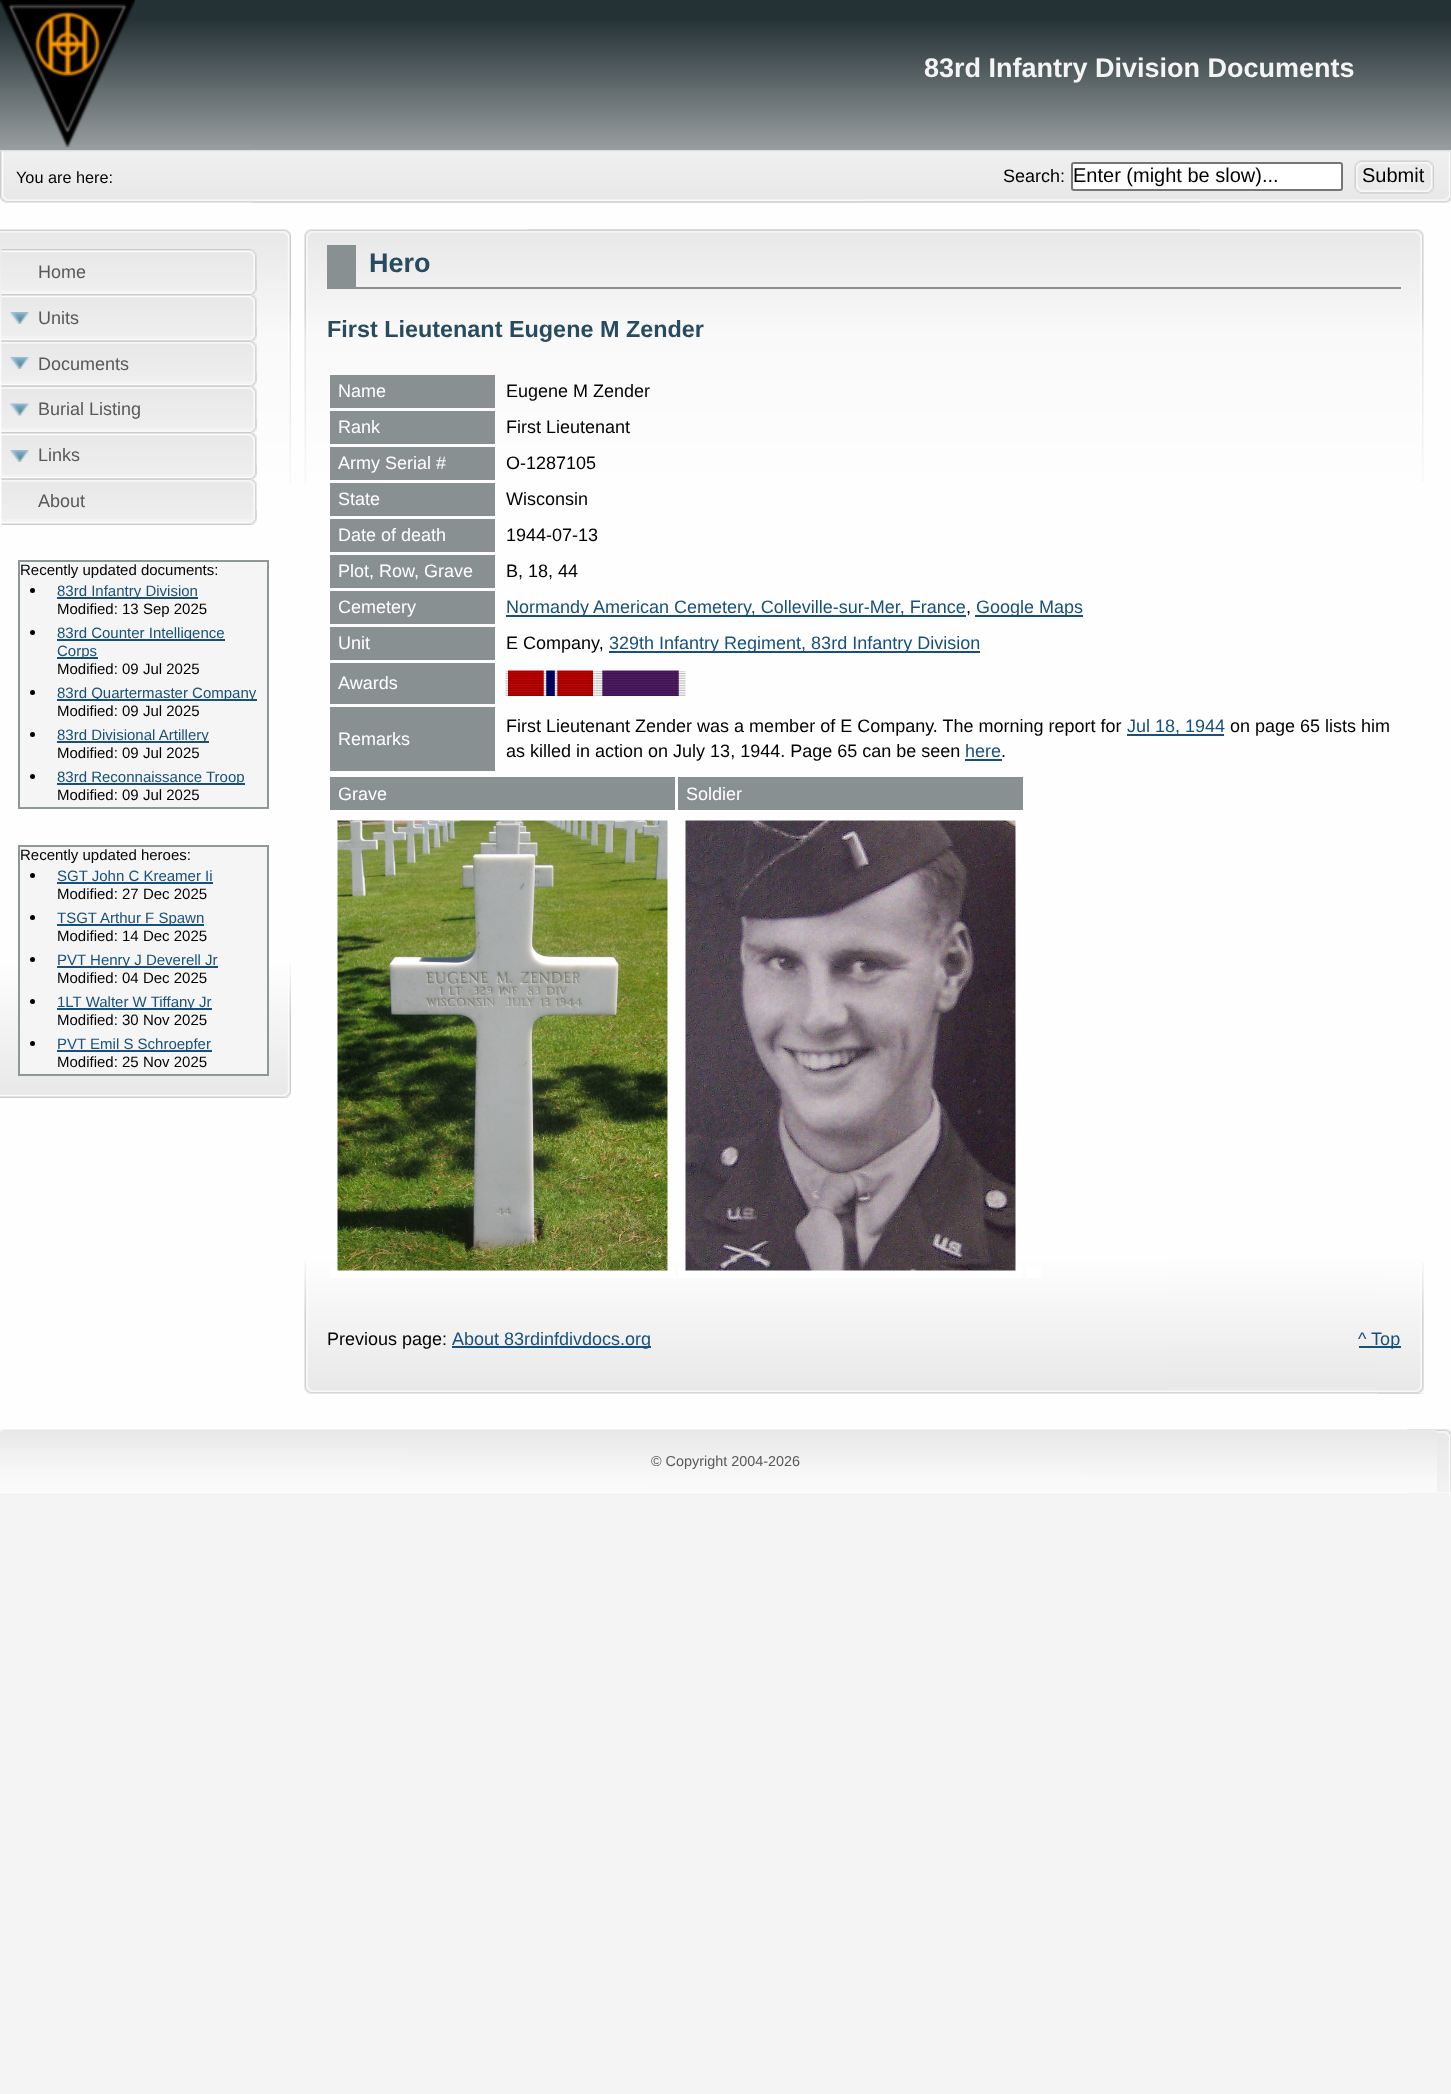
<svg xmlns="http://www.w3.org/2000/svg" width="1451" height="2094">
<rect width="100%" height="100%" fill="#f4f4f4"/>
<rect y="199" width="1451" height="1294" fill="#fefefe"/>
<image x="0" y="0" width="1451" height="150" href="media/1.png"/>
<rect y="150" width="1451" height="2" fill="#d9e2e6"/>
<image x="0" y="0" width="135" height="147" href="media/2.png"/>
<text x="924" y="77" style="font-family:Liberation Sans;font-size:27px;font-weight:bold;fill:#f4f4f4">83rd Infantry Division Documents</text>
<image x="252" y="151" width="1199" height="52" href="media/3.png"/>
<image x="0" y="151" width="1200" height="52" href="media/4.png"/>
<text x="16" y="183" style="font-family:Liberation Sans;font-size:16.25px;fill:#000">You are here:</text>
<text x="1003" y="182" style="font-family:Liberation Sans;font-size:18px;fill:#000">Search:</text>
<rect x="1072" y="163" width="270" height="27" rx="2" fill="#fff" stroke="#767676" stroke-width="2"/>
<text x="1073" y="182" style="font-family:Liberation Sans;font-size:20px;fill:#000">Enter (might be slow)...</text>
<image x="1354" y="160" width="80" height="34" href="media/5.png"/>
<text x="1362" y="182" style="font-family:Liberation Sans;font-size:20px;fill:#000">Submit</text>
<image x="0" y="229" width="291" height="255" href="media/6.png"/>
<image x="0" y="963" width="291" height="135" href="media/7.png"/>
<image x="1" y="280" width="256" height="16" href="media/8.png"/>
<image x="1" y="249" width="256" height="41" href="media/9.png"/>
<text x="38" y="278" style="font-family:Liberation Sans;font-size:18px;fill:#595959">Home</text>
<image x="1" y="327" width="256" height="15" href="media/10.png"/>
<image x="1" y="294" width="256" height="42" href="media/11.png"/>
<image x="10" y="312" width="19" height="12" href="media/12.png"/>
<text x="38" y="324" style="font-family:Liberation Sans;font-size:18px;fill:#595959">Units</text>
<image x="1" y="372" width="256" height="15" href="media/13.png"/>
<image x="1" y="340" width="256" height="41" href="media/14.png"/>
<image x="10" y="357" width="19" height="12" href="media/15.png"/>
<text x="38" y="370" style="font-family:Liberation Sans;font-size:18px;fill:#595959">Documents</text>
<image x="1" y="418" width="256" height="16" href="media/16.png"/>
<image x="1" y="385" width="256" height="43" href="media/17.png"/>
<image x="10" y="403" width="19" height="13" href="media/18.png"/>
<text x="38" y="415" style="font-family:Liberation Sans;font-size:18px;fill:#595959">Burial Listing</text>
<image x="1" y="465" width="256" height="15" href="media/19.png"/>
<image x="1" y="432" width="256" height="42" href="media/20.png"/>
<image x="10" y="450" width="19" height="12" href="media/12.png"/>
<text x="38" y="461" style="font-family:Liberation Sans;font-size:18px;fill:#595959">Links</text>
<image x="1" y="510" width="256" height="15" href="media/19.png"/>
<image x="1" y="478" width="256" height="41" href="media/21.png"/>
<text x="38" y="507" style="font-family:Liberation Sans;font-size:18px;fill:#595959">About</text>
<rect x="19" y="561" width="249" height="247" fill="#f5f5f5" stroke="#909799" stroke-width="2"/>
<text x="20" y="575" style="font-family:Liberation Sans;font-size:15px;fill:#000">Recently updated documents:</text>
<circle cx="32.5" cy="590.5" r="2.5" fill="#000"/>
<rect x="57" y="597" width="141" height="2" fill="#18507c"/>
<text x="57" y="596" style="font-family:Liberation Sans;font-size:15px;fill:#18507c">83rd Infantry Division</text>
<text x="57" y="614" style="font-family:Liberation Sans;font-size:15px;fill:#000">Modified: 13 Sep 2025</text>
<circle cx="32.5" cy="632.5" r="2.5" fill="#000"/>
<rect x="57" y="639" width="168" height="2" fill="#18507c"/>
<text x="57" y="638" style="font-family:Liberation Sans;font-size:15px;fill:#18507c">83rd Counter Intelligence</text>
<rect x="57" y="657" width="41" height="2" fill="#18507c"/>
<text x="57" y="656" style="font-family:Liberation Sans;font-size:15px;fill:#18507c">Corps</text>
<text x="57" y="674" style="font-family:Liberation Sans;font-size:15px;fill:#000">Modified: 09 Jul 2025</text>
<circle cx="32.5" cy="692.5" r="2.5" fill="#000"/>
<rect x="57" y="699" width="200" height="2" fill="#18507c"/>
<text x="57" y="698" style="font-family:Liberation Sans;font-size:15px;fill:#18507c">83rd Quartermaster Company</text>
<text x="57" y="716" style="font-family:Liberation Sans;font-size:15px;fill:#000">Modified: 09 Jul 2025</text>
<circle cx="32.5" cy="734.5" r="2.5" fill="#000"/>
<rect x="57" y="741" width="152" height="2" fill="#18507c"/>
<text x="57" y="740" style="font-family:Liberation Sans;font-size:15px;fill:#18507c">83rd Divisional Artillery</text>
<text x="57" y="758" style="font-family:Liberation Sans;font-size:15px;fill:#000">Modified: 09 Jul 2025</text>
<circle cx="32.5" cy="776.5" r="2.5" fill="#000"/>
<rect x="57" y="783" width="188" height="2" fill="#18507c"/>
<text x="57" y="782" style="font-family:Liberation Sans;font-size:15px;fill:#18507c">83rd Reconnaissance Troop</text>
<text x="57" y="800" style="font-family:Liberation Sans;font-size:15px;fill:#000">Modified: 09 Jul 2025</text>
<rect x="19" y="846" width="249" height="229" fill="#f5f5f5" stroke="#909799" stroke-width="2"/>
<text x="20" y="860" style="font-family:Liberation Sans;font-size:15px;fill:#000">Recently updated heroes:</text>
<circle cx="32.5" cy="875.5" r="2.5" fill="#000"/>
<text x="57" y="881" style="font-family:Liberation Sans;font-size:15px;fill:#18507c">SGT John C Kreamer Ii</text>
<rect x="57" y="882" width="156" height="2" fill="#18507c"/>
<text x="57" y="899" style="font-family:Liberation Sans;font-size:15px;fill:#000">Modified: 27 Dec 2025</text>
<circle cx="32.5" cy="917.5" r="2.5" fill="#000"/>
<rect x="57" y="924" width="147" height="2" fill="#18507c"/>
<text x="57" y="923" style="font-family:Liberation Sans;font-size:15px;fill:#18507c">TSGT Arthur F Spawn</text>
<text x="57" y="941" style="font-family:Liberation Sans;font-size:15px;fill:#000">Modified: 14 Dec 2025</text>
<circle cx="32.5" cy="959.5" r="2.5" fill="#000"/>
<rect x="57" y="966" width="161" height="2" fill="#18507c"/>
<text x="57" y="965" style="font-family:Liberation Sans;font-size:15px;fill:#18507c">PVT Henry J Deverell Jr</text>
<text x="57" y="983" style="font-family:Liberation Sans;font-size:15px;fill:#000">Modified: 04 Dec 2025</text>
<circle cx="32.5" cy="1001.5" r="2.5" fill="#000"/>
<rect x="57" y="1008" width="155" height="2" fill="#18507c"/>
<text x="57" y="1007" style="font-family:Liberation Sans;font-size:15px;fill:#18507c">1LT Walter W Tiffany Jr</text>
<text x="57" y="1025" style="font-family:Liberation Sans;font-size:15px;fill:#000">Modified: 30 Nov 2025</text>
<circle cx="32.5" cy="1043.5" r="2.5" fill="#000"/>
<rect x="57" y="1050" width="155" height="2" fill="#18507c"/>
<text x="57" y="1049" style="font-family:Liberation Sans;font-size:15px;fill:#18507c">PVT Emil S Schroepfer</text>
<text x="57" y="1067" style="font-family:Liberation Sans;font-size:15px;fill:#000">Modified: 25 Nov 2025</text>
<image x="528" y="229" width="896" height="253" href="media/22.png"/>
<image x="304" y="229" width="896" height="254" href="media/23.png"/>
<image x="304" y="1259" width="1120" height="135" href="media/24.png"/>
<image x="1378" y="1261" width="46" height="133" href="media/25.png"/>
<rect x="327" y="287" width="1074" height="2" fill="#899092"/>
<rect x="327" y="245" width="29" height="42" fill="#899092"/>
<text x="369" y="272" style="font-family:Liberation Sans;font-size:27px;font-weight:bold;fill:#294b5f">Hero</text>
<text x="327" y="337" style="font-family:Liberation Sans;font-size:23.4px;font-weight:bold;fill:#294b5f">First Lieutenant Eugene M Zender</text>
<rect x="330" y="375" width="165" height="33" fill="#899092"/>
<text x="338" y="397" style="font-family:Liberation Sans;font-size:18px;fill:#fff">Name</text>
<text x="506" y="397" style="font-family:Liberation Sans;font-size:18px;fill:#000">Eugene M Zender</text>
<rect x="330" y="411" width="165" height="33" fill="#899092"/>
<text x="338" y="433" style="font-family:Liberation Sans;font-size:18px;fill:#fff">Rank</text>
<text x="506" y="433" style="font-family:Liberation Sans;font-size:18px;fill:#000">First Lieutenant</text>
<rect x="330" y="447" width="165" height="33" fill="#899092"/>
<text x="338" y="469" style="font-family:Liberation Sans;font-size:18px;fill:#fff">Army Serial #</text>
<text x="506" y="469" style="font-family:Liberation Sans;font-size:18px;fill:#000">O-1287105</text>
<rect x="330" y="483" width="165" height="33" fill="#899092"/>
<text x="338" y="505" style="font-family:Liberation Sans;font-size:18px;fill:#fff">State</text>
<text x="506" y="505" style="font-family:Liberation Sans;font-size:18px;fill:#000">Wisconsin</text>
<rect x="330" y="519" width="165" height="33" fill="#899092"/>
<text x="338" y="541" style="font-family:Liberation Sans;font-size:18px;fill:#fff">Date of death</text>
<text x="506" y="541" style="font-family:Liberation Sans;font-size:18px;fill:#000">1944-07-13</text>
<rect x="330" y="555" width="165" height="33" fill="#899092"/>
<text x="338" y="577" style="font-family:Liberation Sans;font-size:18px;fill:#fff">Plot, Row, Grave</text>
<text x="506" y="577" style="font-family:Liberation Sans;font-size:18px;fill:#000">B, 18, 44</text>
<rect x="330" y="591" width="165" height="33" fill="#899092"/>
<text x="338" y="613" style="font-family:Liberation Sans;font-size:18px;fill:#fff">Cemetery</text>
<rect x="506" y="615" width="460" height="2" fill="#18507c"/>
<text x="506" y="613" style="font-family:Liberation Sans;font-size:18px;fill:#18507c">Normandy American Cemetery, Colleville-sur-Mer, France</text>
<text x="966" y="613" style="font-family:Liberation Sans;font-size:18px;fill:#000">,</text>
<rect x="975" y="615" width="108" height="2" fill="#18507c"/>
<text x="976" y="613" style="font-family:Liberation Sans;font-size:18px;fill:#18507c">Google Maps</text>
<rect x="330" y="627" width="165" height="33" fill="#899092"/>
<text x="338" y="649" style="font-family:Liberation Sans;font-size:18px;fill:#fff">Unit</text>
<text x="506" y="649" style="font-family:Liberation Sans;font-size:18px;fill:#000">E Company,</text>
<rect x="609" y="651" width="371" height="2" fill="#18507c"/>
<text x="609" y="649" style="font-family:Liberation Sans;font-size:18px;fill:#18507c">329th Infantry Regiment, 83rd Infantry Division</text>
<rect x="330" y="663" width="165" height="41" fill="#899092"/>
<text x="338" y="689" style="font-family:Liberation Sans;font-size:18px;fill:#fff">Awards</text>
<image x="505" y="670" width="91" height="26" href="media/26.png"/>
<image x="595" y="670" width="91" height="26" href="media/27.png"/>
<rect x="330" y="707" width="165" height="64" fill="#899092"/>
<text x="338" y="745" style="font-family:Liberation Sans;font-size:18px;fill:#fff">Remarks</text>
<text x="506" y="732" style="font-family:Liberation Sans;font-size:18px;fill:#000">First Lieutenant Zender was a member of E Company. The morning report for</text>
<rect x="1127" y="734" width="97" height="2" fill="#18507c"/>
<text x="1127" y="732" style="font-family:Liberation Sans;font-size:18px;fill:#18507c">Jul 18, 1944</text>
<text x="1230" y="732" style="font-family:Liberation Sans;font-size:18px;fill:#000">on page 65 lists him</text>
<text x="506" y="757" style="font-family:Liberation Sans;font-size:18px;fill:#000">as killed in action on July 13, 1944. Page 65 can be seen</text>
<text x="965" y="757" style="font-family:Liberation Sans;font-size:18px;fill:#18507c">here</text>
<rect x="965" y="759" width="37" height="2" fill="#18507c"/>
<text x="1001" y="757" style="font-family:Liberation Sans;font-size:18px;fill:#000">.</text>
<rect x="330" y="777" width="345" height="33" fill="#899092"/>
<text x="338" y="800" style="font-family:Liberation Sans;font-size:18px;fill:#fff">Grave</text>
<rect x="678" y="777" width="345" height="33" fill="#899092"/>
<text x="686" y="800" style="font-family:Liberation Sans;font-size:18px;fill:#fff">Soldier</text>
<rect x="330" y="1267" width="345" height="11" fill="#fff"/>
<image x="337" y="820" width="331" height="451" href="media/28.png"/>
<rect x="678" y="1267" width="345" height="11" fill="#fff"/>
<image x="685" y="820" width="331" height="451" href="media/29.png"/>
<rect x="1026" y="1267" width="15" height="11" fill="#fff"/>
<text x="327" y="1345" style="font-family:Liberation Sans;font-size:18px;fill:#000">Previous page:</text>
<rect x="452" y="1346" width="199" height="2" fill="#18507c"/>
<text x="452" y="1345" style="font-family:Liberation Sans;font-size:18px;fill:#18507c">About 83rdinfdivdocs.org</text>
<rect x="1359" y="1346" width="42" height="2" fill="#18507c"/>
<text x="1358" y="1345" style="font-family:Liberation Sans;font-size:18px;fill:#18507c">^ Top</text>
<image x="1407" y="1429" width="44" height="64" href="media/30.png"/>
<image x="0" y="1429" width="1437" height="63" href="media/31.png"/>
<text x="651" y="1466" style="font-family:Liberation Sans;font-size:14.4px;fill:#595959">© Copyright 2004-2026</text>
</svg>
